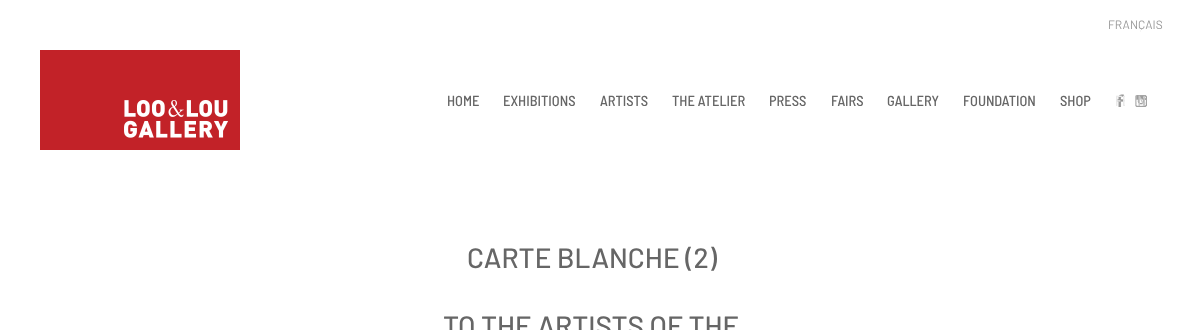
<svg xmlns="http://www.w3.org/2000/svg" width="1183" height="330">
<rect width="100%" height="100%" fill="#fff"/>
<text x="1108" y="29" style="font-family:Barlow;font-size:12px;fill:#999">FRANÇAIS</text>
<rect x="1141" y="30" width="2" height="2" fill="#fff"/>
<image x="40" y="50" width="200" height="100" href="media/1.png"/>
<text x="447" y="106" style="font-family:Barlow Semi Condensed;font-size:14.5px;font-weight:500;fill:#666">HOME</text>
<text x="503" y="106" style="font-family:Barlow Semi Condensed;font-size:14.5px;font-weight:500;fill:#666">EXHIBITIONS</text>
<text x="600" y="106" style="font-family:Barlow Semi Condensed;font-size:14.5px;font-weight:500;fill:#666">ARTISTS</text>
<text x="672" y="106" style="font-family:Barlow Semi Condensed;font-size:14.5px;font-weight:500;fill:#666">THE ATELIER</text>
<text x="769" y="106" style="font-family:Barlow Semi Condensed;font-size:14.5px;font-weight:500;fill:#666">PRESS</text>
<text x="831" y="106" style="font-family:Barlow Semi Condensed;font-size:14.5px;font-weight:500;fill:#666">FAIRS</text>
<text x="887" y="106" style="font-family:Barlow Semi Condensed;font-size:14.5px;font-weight:500;fill:#666">GALLERY</text>
<text x="963" y="106" style="font-family:Barlow Semi Condensed;font-size:14.5px;font-weight:500;fill:#666">FOUNDATION</text>
<text x="1060" y="106" style="font-family:Barlow Semi Condensed;font-size:14.5px;font-weight:500;fill:#666">SHOP</text>
<image x="1116" y="94" width="8" height="13" href="media/2.png"/>
<text x="1115" y="106" style="font-family:Barlow Semi Condensed;font-size:14.5px;font-weight:500;fill:#eaeaea">FB</text>
<image x="1125" y="95" width="22" height="12" href="media/3.png"/>
<text x="1134" y="106" style="font-family:Barlow Semi Condensed;font-size:14.5px;font-weight:500;fill:#c6c6c6">IN</text>
<text x="467" y="268" style="font-family:Barlow;font-size:28px;font-weight:500;fill:#666">CARTE BLANCHE (2)</text>
<text x="443" y="336" style="font-family:Barlow;font-size:28px;font-weight:500;fill:#666">TO THE ARTISTS OF THE</text>
</svg>
